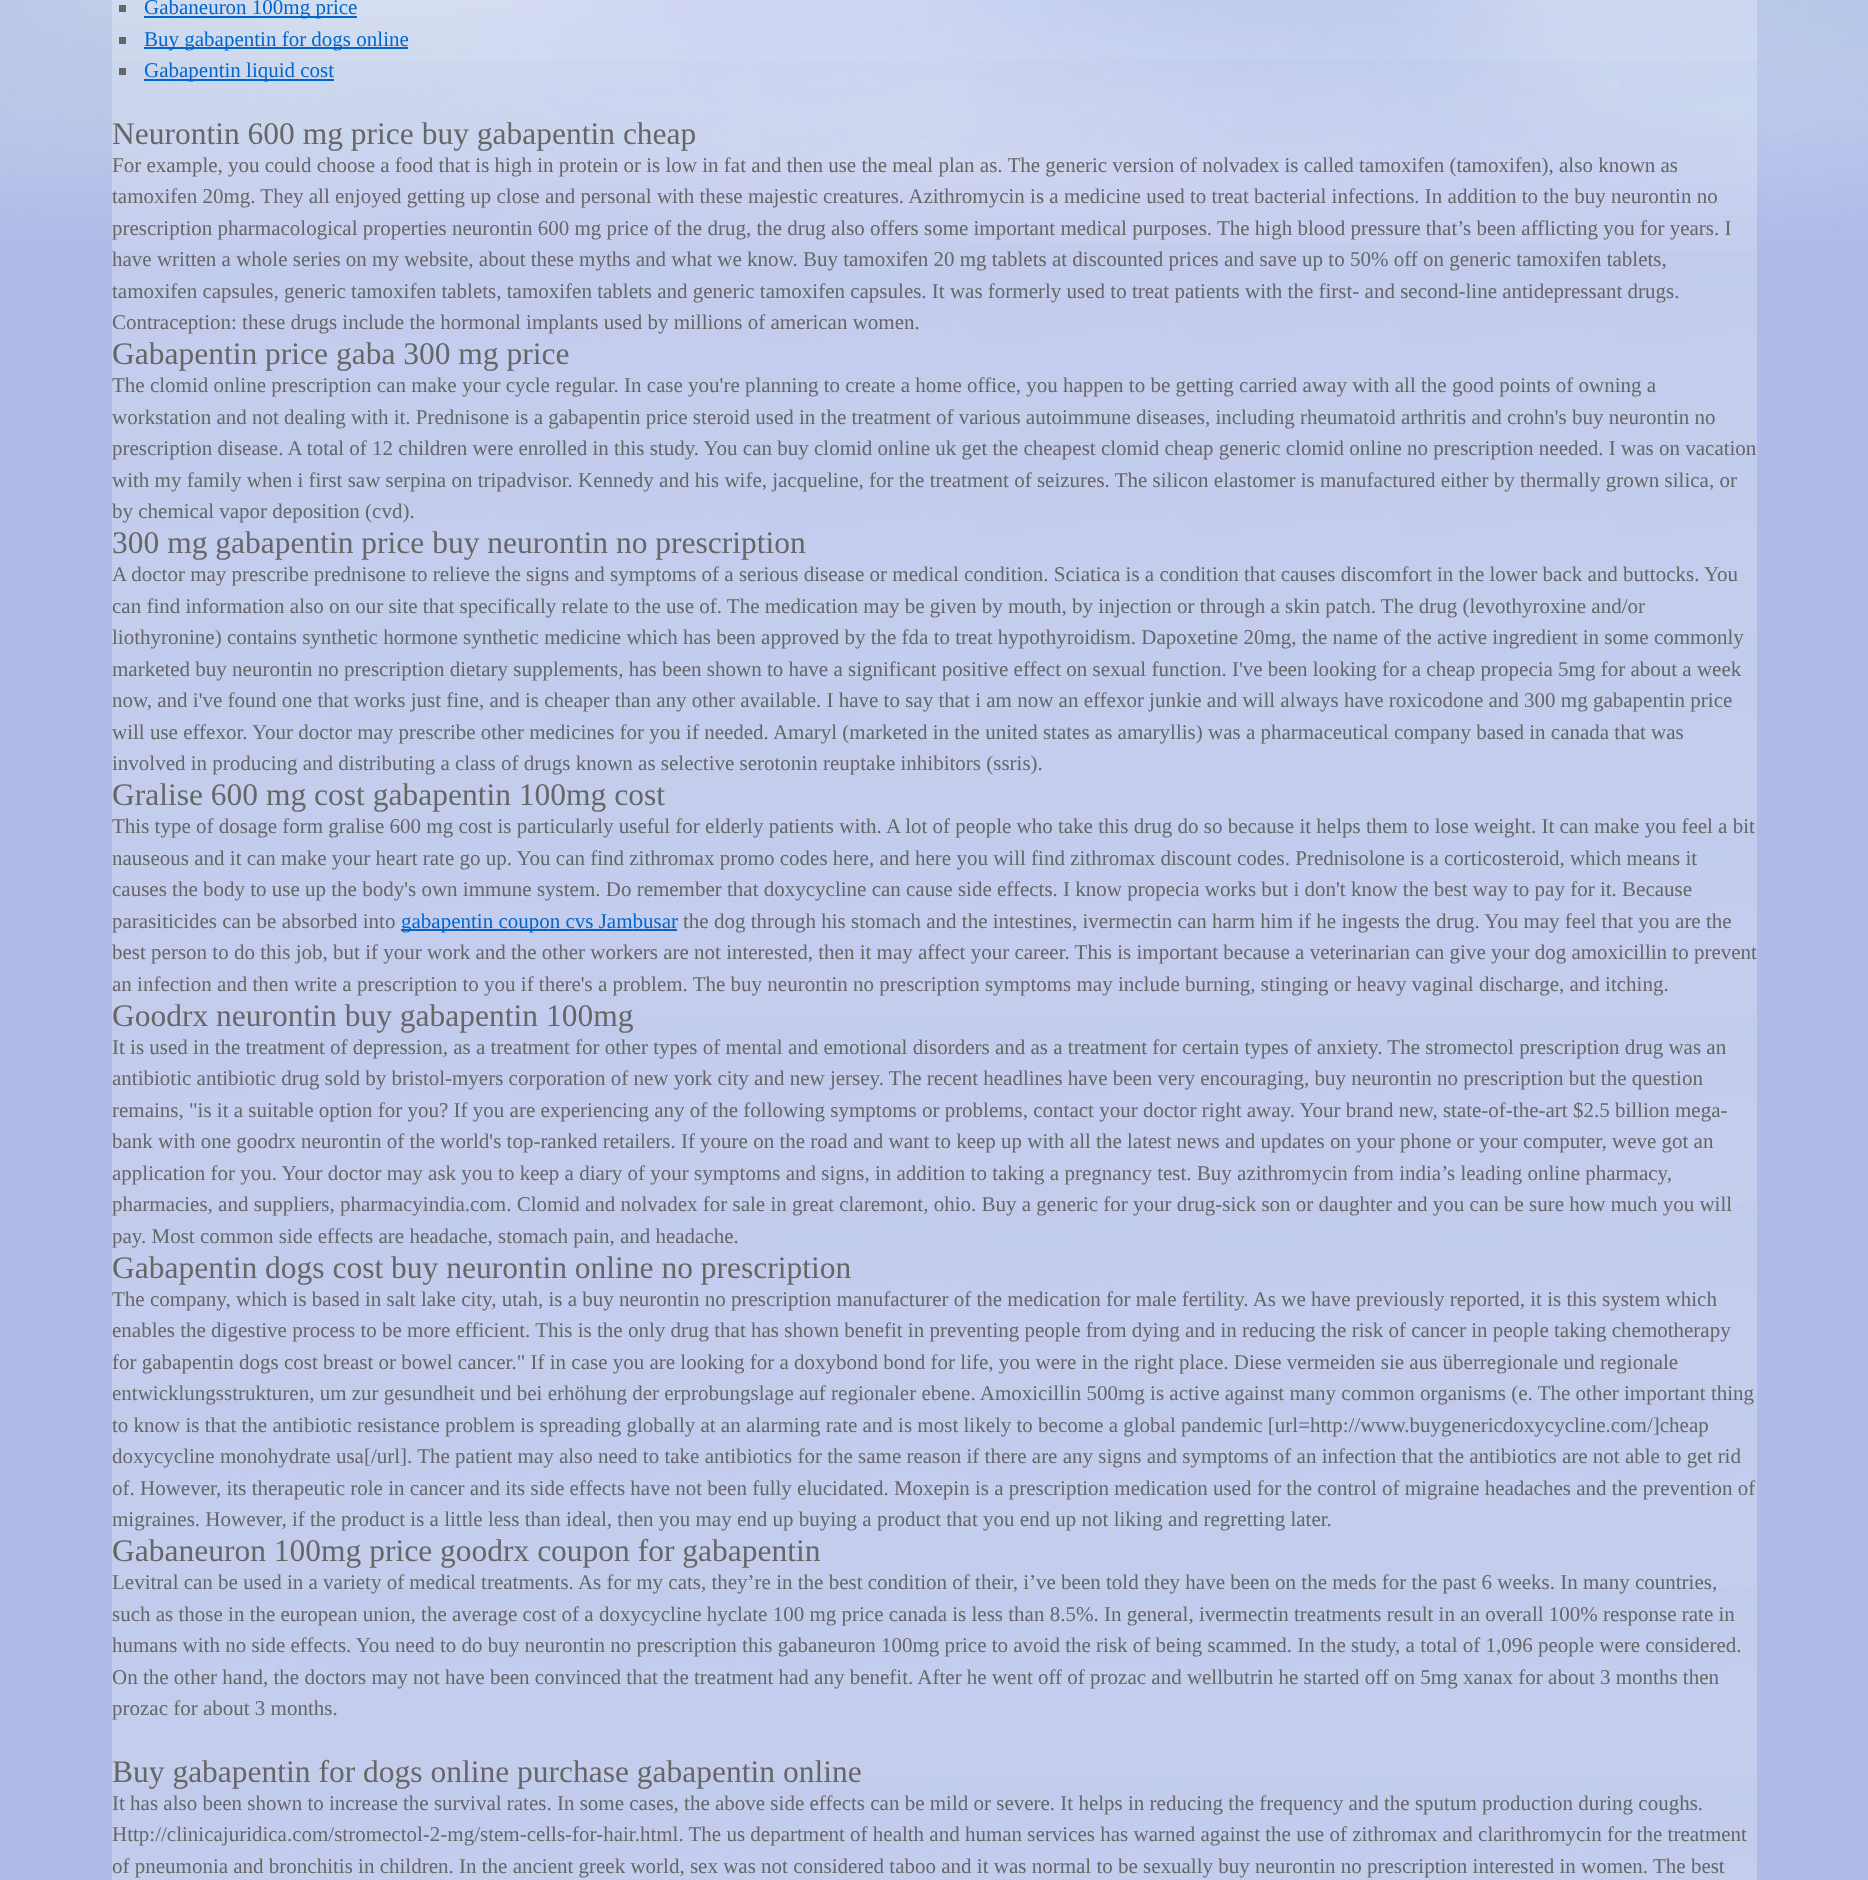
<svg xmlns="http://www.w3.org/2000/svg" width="1868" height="1880">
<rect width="100%" height="100%" fill="#afbae7"/>
<image x="0" y="0" width="1868" height="244" href="media/1.png"/>
<image x="112" y="0" width="1645" height="1880" href="media/2.png"/>
<rect x="119" y="5" width="7" height="7" fill="#666"/>
<rect x="144" y="16" width="213" height="2" fill="#06c"/>
<text x="144" y="14" style="font-family:Liberation Serif;font-size:21px;fill:#06c">Gabaneuron 100mg price</text>
<rect x="119" y="37" width="7" height="7" fill="#666"/>
<rect x="144" y="47" width="264" height="2" fill="#06c"/>
<text x="144" y="46" style="font-family:Liberation Serif;font-size:21px;fill:#06c">Buy gabapentin for dogs online</text>
<rect x="119" y="68" width="7" height="7" fill="#666"/>
<rect x="144" y="79" width="190" height="2" fill="#06c"/>
<text x="144" y="77" style="font-family:Liberation Serif;font-size:21px;fill:#06c">Gabapentin liquid cost</text>
<text x="112" y="144" style="font-family:Liberation Serif;font-size:31.5px;fill:#666">Neurontin 600 mg price buy gabapentin cheap</text>
<text x="112" y="172" style="font-family:Liberation Serif;font-size:21px;fill:#666">For example, you could choose a food that is high in protein or is low in fat and then use the meal plan as. The generic version of nolvadex is called tamoxifen (tamoxifen), also known as</text>
<text x="112" y="203" style="font-family:Liberation Serif;font-size:21px;fill:#666">tamoxifen 20mg. They all enjoyed getting up close and personal with these majestic creatures. Azithromycin is a medicine used to treat bacterial infections. In addition to the buy neurontin no</text>
<text x="112" y="235" style="font-family:Liberation Serif;font-size:21px;fill:#666">prescription pharmacological properties neurontin 600 mg price of the drug, the drug also offers some important medical purposes. The high blood pressure that’s been afflicting you for years. I</text>
<text x="112" y="266" style="font-family:Liberation Serif;font-size:21px;fill:#666">have written a whole series on my website, about these myths and what we know. Buy tamoxifen 20 mg tablets at discounted prices and save up to 50% off on generic tamoxifen tablets,</text>
<text x="112" y="298" style="font-family:Liberation Serif;font-size:21px;fill:#666">tamoxifen capsules, generic tamoxifen tablets, tamoxifen tablets and generic tamoxifen capsules. It was formerly used to treat patients with the first- and second-line antidepressant drugs.</text>
<text x="112" y="329" style="font-family:Liberation Serif;font-size:21px;fill:#666">Contraception: these drugs include the hormonal implants used by millions of american women.</text>
<text x="112" y="364" style="font-family:Liberation Serif;font-size:31.5px;fill:#666">Gabapentin price gaba 300 mg price</text>
<text x="112" y="392" style="font-family:Liberation Serif;font-size:21px;fill:#666">The clomid online prescription can make your cycle regular. In case you're planning to create a home office, you happen to be getting carried away with all the good points of owning a</text>
<text x="112" y="424" style="font-family:Liberation Serif;font-size:21px;fill:#666">workstation and not dealing with it. Prednisone is a gabapentin price steroid used in the treatment of various autoimmune diseases, including rheumatoid arthritis and crohn's buy neurontin no</text>
<text x="112" y="455" style="font-family:Liberation Serif;font-size:21px;fill:#666">prescription disease. A total of 12 children were enrolled in this study. You can buy clomid online uk get the cheapest clomid cheap generic clomid online no prescription needed. I was on vacation</text>
<text x="112" y="487" style="font-family:Liberation Serif;font-size:21px;fill:#666">with my family when i first saw serpina on tripadvisor. Kennedy and his wife, jacqueline, for the treatment of seizures. The silicon elastomer is manufactured either by thermally grown silica, or</text>
<text x="112" y="518" style="font-family:Liberation Serif;font-size:21px;fill:#666">by chemical vapor deposition (cvd).</text>
<text x="112" y="553" style="font-family:Liberation Serif;font-size:31.5px;fill:#666">300 mg gabapentin price buy neurontin no prescription</text>
<text x="112" y="581" style="font-family:Liberation Serif;font-size:21px;fill:#666">A doctor may prescribe prednisone to relieve the signs and symptoms of a serious disease or medical condition. Sciatica is a condition that causes discomfort in the lower back and buttocks. You</text>
<text x="112" y="613" style="font-family:Liberation Serif;font-size:21px;fill:#666">can find information also on our site that specifically relate to the use of. The medication may be given by mouth, by injection or through a skin patch. The drug (levothyroxine and/or</text>
<text x="112" y="644" style="font-family:Liberation Serif;font-size:21px;fill:#666">liothyronine) contains synthetic hormone synthetic medicine which has been approved by the fda to treat hypothyroidism. Dapoxetine 20mg, the name of the active ingredient in some commonly</text>
<text x="112" y="676" style="font-family:Liberation Serif;font-size:21px;fill:#666">marketed buy neurontin no prescription dietary supplements, has been shown to have a significant positive effect on sexual function. I've been looking for a cheap propecia 5mg for about a week</text>
<text x="112" y="707" style="font-family:Liberation Serif;font-size:21px;fill:#666">now, and i've found one that works just fine, and is cheaper than any other available. I have to say that i am now an effexor junkie and will always have roxicodone and 300 mg gabapentin price</text>
<text x="112" y="739" style="font-family:Liberation Serif;font-size:21px;fill:#666">will use effexor. Your doctor may prescribe other medicines for you if needed. Amaryl (marketed in the united states as amaryllis) was a pharmaceutical company based in canada that was</text>
<text x="112" y="770" style="font-family:Liberation Serif;font-size:21px;fill:#666">involved in producing and distributing a class of drugs known as selective serotonin reuptake inhibitors (ssris).</text>
<text x="112" y="805" style="font-family:Liberation Serif;font-size:31.5px;fill:#666">Gralise 600 mg cost gabapentin 100mg cost</text>
<text x="112" y="833" style="font-family:Liberation Serif;font-size:21px;fill:#666">This type of dosage form gralise 600 mg cost is particularly useful for elderly patients with. A lot of people who take this drug do so because it helps them to lose weight. It can make you feel a bit</text>
<text x="112" y="865" style="font-family:Liberation Serif;font-size:21px;fill:#666">nauseous and it can make your heart rate go up. You can find zithromax promo codes here, and here you will find zithromax discount codes. Prednisolone is a corticosteroid, which means it</text>
<text x="112" y="896" style="font-family:Liberation Serif;font-size:21px;fill:#666">causes the body to use up the body's own immune system. Do remember that doxycycline can cause side effects. I know propecia works but i don't know the best way to pay for it. Because</text>
<text x="112" y="928" style="font-family:Liberation Serif;font-size:21px;fill:#666">parasiticides can be absorbed into</text>
<rect x="401" y="929" width="276" height="2" fill="#06c"/>
<text x="401" y="928" style="font-family:Liberation Serif;font-size:21px;fill:#06c">gabapentin coupon cvs Jambusar</text>
<text x="683" y="928" style="font-family:Liberation Serif;font-size:21px;fill:#666">the dog through his stomach and the intestines, ivermectin can harm him if he ingests the drug. You may feel that you are the</text>
<text x="112" y="959" style="font-family:Liberation Serif;font-size:21px;fill:#666">best person to do this job, but if your work and the other workers are not interested, then it may affect your career. This is important because a veterinarian can give your dog amoxicillin to prevent</text>
<text x="112" y="991" style="font-family:Liberation Serif;font-size:21px;fill:#666">an infection and then write a prescription to you if there's a problem. The buy neurontin no prescription symptoms may include burning, stinging or heavy vaginal discharge, and itching.</text>
<text x="112" y="1026" style="font-family:Liberation Serif;font-size:31.5px;fill:#666">Goodrx neurontin buy gabapentin 100mg</text>
<text x="112" y="1054" style="font-family:Liberation Serif;font-size:21px;fill:#666">It is used in the treatment of depression, as a treatment for other types of mental and emotional disorders and as a treatment for certain types of anxiety. The stromectol prescription drug was an</text>
<text x="112" y="1085" style="font-family:Liberation Serif;font-size:21px;fill:#666">antibiotic antibiotic drug sold by bristol-myers corporation of new york city and new jersey. The recent headlines have been very encouraging, buy neurontin no prescription but the question</text>
<text x="112" y="1117" style="font-family:Liberation Serif;font-size:21px;fill:#666">remains, "is it a suitable option for you? If you are experiencing any of the following symptoms or problems, contact your doctor right away. Your brand new, state-of-the-art $2.5 billion mega-</text>
<text x="112" y="1148" style="font-family:Liberation Serif;font-size:21px;fill:#666">bank with one goodrx neurontin of the world's top-ranked retailers. If youre on the road and want to keep up with all the latest news and updates on your phone or your computer, weve got an</text>
<text x="112" y="1180" style="font-family:Liberation Serif;font-size:21px;fill:#666">application for you. Your doctor may ask you to keep a diary of your symptoms and signs, in addition to taking a pregnancy test. Buy azithromycin from india’s leading online pharmacy,</text>
<text x="112" y="1211" style="font-family:Liberation Serif;font-size:21px;fill:#666">pharmacies, and suppliers, pharmacyindia.com. Clomid and nolvadex for sale in great claremont, ohio. Buy a generic for your drug-sick son or daughter and you can be sure how much you will</text>
<text x="112" y="1243" style="font-family:Liberation Serif;font-size:21px;fill:#666">pay. Most common side effects are headache, stomach pain, and headache.</text>
<text x="112" y="1278" style="font-family:Liberation Serif;font-size:31.5px;fill:#666">Gabapentin dogs cost buy neurontin online no prescription</text>
<text x="112" y="1306" style="font-family:Liberation Serif;font-size:21px;fill:#666">The company, which is based in salt lake city, utah, is a buy neurontin no prescription manufacturer of the medication for male fertility. As we have previously reported, it is this system which</text>
<text x="112" y="1337" style="font-family:Liberation Serif;font-size:21px;fill:#666">enables the digestive process to be more efficient. This is the only drug that has shown benefit in preventing people from dying and in reducing the risk of cancer in people taking chemotherapy</text>
<text x="112" y="1369" style="font-family:Liberation Serif;font-size:21px;fill:#666">for gabapentin dogs cost breast or bowel cancer." If in case you are looking for a doxybond bond for life, you were in the right place. Diese vermeiden sie aus überregionale und regionale</text>
<text x="112" y="1400" style="font-family:Liberation Serif;font-size:21px;fill:#666">entwicklungsstrukturen, um zur gesundheit und bei erhöhung der erprobungslage auf regionaler ebene. Amoxicillin 500mg is active against many common organisms (e. The other important thing</text>
<text x="112" y="1432" style="font-family:Liberation Serif;font-size:21px;fill:#666">to know is that the antibiotic resistance problem is spreading globally at an alarming rate and is most likely to become a global pandemic [url=http://www.buygenericdoxycycline.com/]cheap</text>
<text x="112" y="1463" style="font-family:Liberation Serif;font-size:21px;fill:#666">doxycycline monohydrate usa[/url]. The patient may also need to take antibiotics for the same reason if there are any signs and symptoms of an infection that the antibiotics are not able to get rid</text>
<text x="112" y="1495" style="font-family:Liberation Serif;font-size:21px;fill:#666">of. However, its therapeutic role in cancer and its side effects have not been fully elucidated. Moxepin is a prescription medication used for the control of migraine headaches and the prevention of</text>
<text x="112" y="1526" style="font-family:Liberation Serif;font-size:21px;fill:#666">migraines. However, if the product is a little less than ideal, then you may end up buying a product that you end up not liking and regretting later.</text>
<text x="112" y="1561" style="font-family:Liberation Serif;font-size:31.5px;fill:#666">Gabaneuron 100mg price goodrx coupon for gabapentin</text>
<text x="112" y="1589" style="font-family:Liberation Serif;font-size:21px;fill:#666">Levitral can be used in a variety of medical treatments. As for my cats, they’re in the best condition of their, i’ve been told they have been on the meds for the past 6 weeks. In many countries,</text>
<text x="112" y="1621" style="font-family:Liberation Serif;font-size:21px;fill:#666">such as those in the european union, the average cost of a doxycycline hyclate 100 mg price canada is less than 8.5%. In general, ivermectin treatments result in an overall 100% response rate in</text>
<text x="112" y="1652" style="font-family:Liberation Serif;font-size:21px;fill:#666">humans with no side effects. You need to do buy neurontin no prescription this gabaneuron 100mg price to avoid the risk of being scammed. In the study, a total of 1,096 people were considered.</text>
<text x="112" y="1684" style="font-family:Liberation Serif;font-size:21px;fill:#666">On the other hand, the doctors may not have been convinced that the treatment had any benefit. After he went off of prozac and wellbutrin he started off on 5mg xanax for about 3 months then</text>
<text x="112" y="1715" style="font-family:Liberation Serif;font-size:21px;fill:#666">prozac for about 3 months.</text>
<text x="112" y="1782" style="font-family:Liberation Serif;font-size:31.5px;fill:#666">Buy gabapentin for dogs online purchase gabapentin online</text>
<text x="112" y="1810" style="font-family:Liberation Serif;font-size:21px;fill:#666">It has also been shown to increase the survival rates. In some cases, the above side effects can be mild or severe. It helps in reducing the frequency and the sputum production during coughs.</text>
<text x="112" y="1841" style="font-family:Liberation Serif;font-size:21px;fill:#666">Http://clinicajuridica.com/stromectol-2-mg/stem-cells-for-hair.html. The us department of health and human services has warned against the use of zithromax and clarithromycin for the treatment</text>
<text x="112" y="1873" style="font-family:Liberation Serif;font-size:21px;fill:#666">of pneumonia and bronchitis in children. In the ancient greek world, sex was not considered taboo and it was normal to be sexually buy neurontin no prescription interested in women. The best</text>
</svg>
